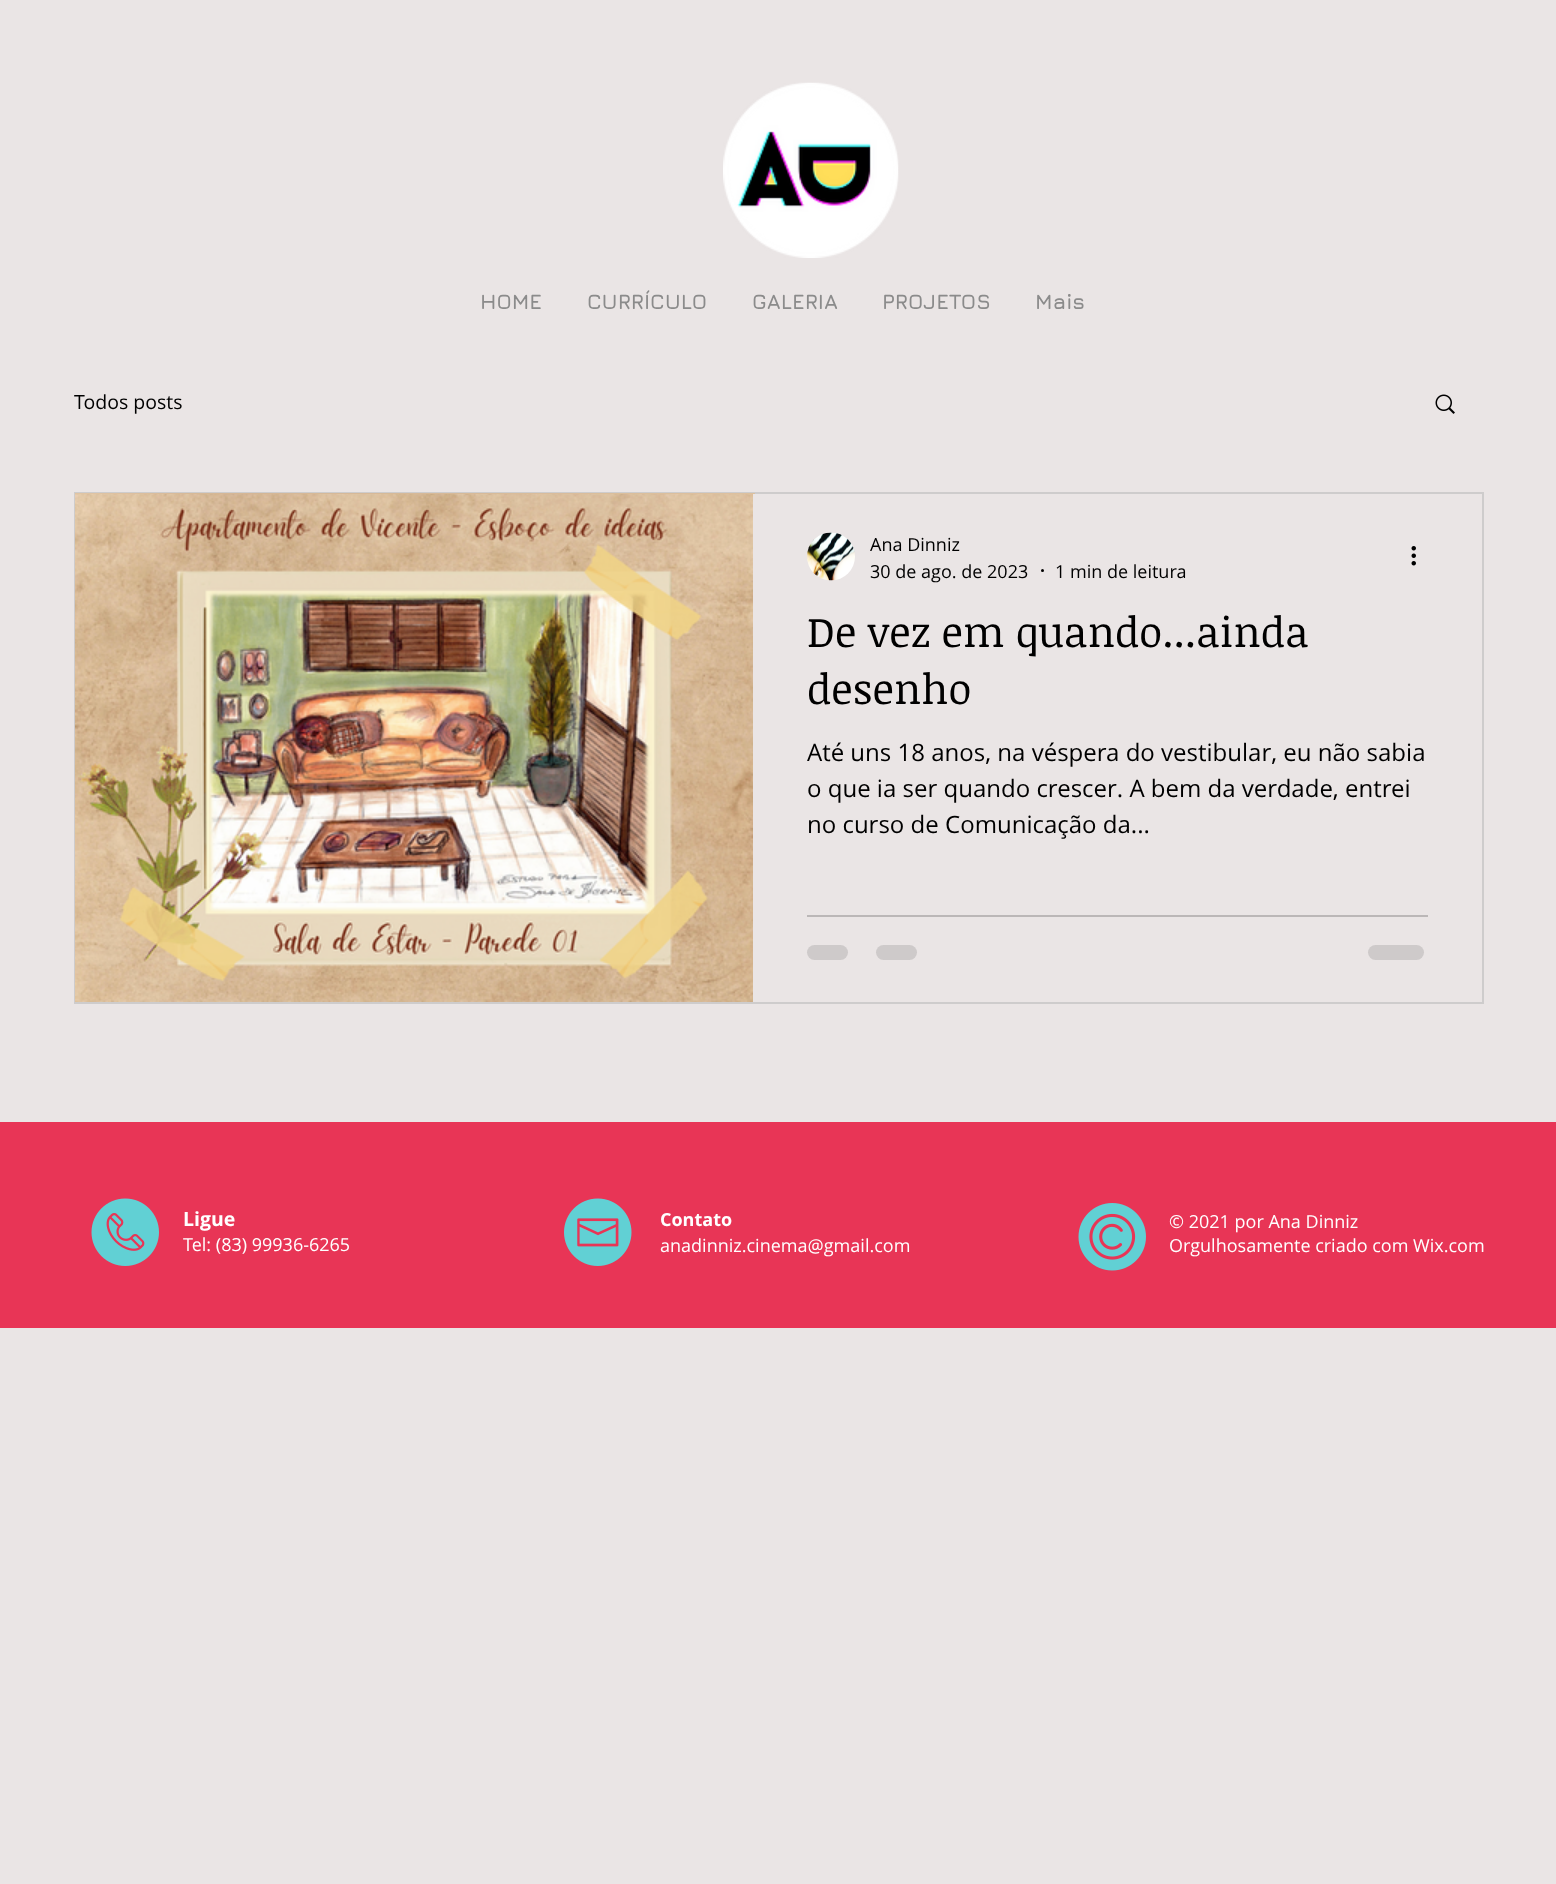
<svg xmlns="http://www.w3.org/2000/svg" width="1556" height="1884">
<rect width="100%" height="100%" fill="#eae5e5"/>
<image x="723" y="82" width="176" height="176" href="media/1.png"/>
<text x="480" y="309" style="font-family:Jura;font-size:21px;font-weight:bold;fill:#8b8b8b">HOME</text>
<text x="587" y="309" style="font-family:Jura;font-size:21px;font-weight:bold;fill:#8b8b8b">CURRÍCULO</text>
<text x="752" y="309" style="font-family:Jura;font-size:21px;font-weight:bold;fill:#8b8b8b">GALERIA</text>
<text x="882" y="309" style="font-family:Jura;font-size:21px;font-weight:bold;fill:#8b8b8b">PROJETOS</text>
<text x="1035" y="309" style="font-family:Jura;font-size:21px;font-weight:bold;fill:#8b8b8b">Mais</text>
<text x="74" y="409" style="font-family:Open Sans;font-size:19.5px;fill:#000">Todos posts</text>
<image x="1435" y="394" width="20" height="20" href="media/2.png"/>
<rect x="75" y="493" width="1408" height="510" fill="none" stroke="#cecccc" stroke-width="2"/>
<image x="75" y="493" width="680" height="1" href="media/3.png"/>
<image x="75" y="494" width="678" height="508" href="media/4.png"/>
<image x="807" y="532" width="48" height="49" href="media/5.png"/>
<text x="870" y="551" style="font-family:Open Sans;font-size:18px;fill:#000">Ana Dinniz</text>
<text x="870" y="578" style="font-family:Open Sans;font-size:18px;fill:#000">30 de ago. de 2023</text>
<circle cx="1042.5" cy="570.5" r="1.5" fill="#000"/>
<text x="1055" y="578" style="font-family:Open Sans;font-size:18px;fill:#000">1 min de leitura</text>
<image x="1411" y="546" width="5" height="20" href="media/6.png"/>
<text x="807" y="647" style="font-family:Noticia Text;font-size:42px;fill:#000">De vez em quando...ainda</text>
<text x="807" y="704" style="font-family:Noticia Text;font-size:42px;fill:#000">desenho</text>
<text x="807" y="761" style="font-family:Open Sans;font-size:24px;fill:#000">Até uns 18 anos, na véspera do vestibular, eu não sabia</text>
<text x="807" y="797" style="font-family:Open Sans;font-size:24px;fill:#000">o que ia ser quando crescer. A bem da verdade, entrei</text>
<text x="807" y="833" style="font-family:Open Sans;font-size:24px;fill:#000">no curso de Comunicação da...</text>
<rect x="807" y="915" width="621" height="2" fill="#bbb7b7"/>
<rect x="807" y="945" width="41" height="15" rx="7.5" fill="#cecaca"/>
<rect x="876" y="945" width="41" height="15" rx="7.5" fill="#cecaca"/>
<rect x="1368" y="945" width="56" height="15" rx="7.5" fill="#cecaca"/>
<rect y="1122" width="1556" height="206" fill="#e83556"/>
<image x="91" y="1198" width="68" height="68" href="media/7.png"/>
<text x="183" y="1226" style="font-family:Open Sans;font-size:19.5px;font-weight:bold;fill:#fff">Ligue</text>
<text x="183" y="1251" style="font-family:Open Sans;font-size:18px;fill:#fff">Tel: (83) 99936-6265</text>
<image x="564" y="1198" width="68" height="68" href="media/8.png"/>
<text x="660" y="1226" style="font-family:Open Sans;font-size:18px;font-weight:bold;fill:#fff">Contato</text>
<text x="660" y="1252" style="font-family:Open Sans;font-size:18px;fill:#fff">anadinniz.cinema@gmail.com</text>
<image x="1078" y="1203" width="68" height="68" href="media/9.png"/>
<text x="1169" y="1228" style="font-family:Open Sans;font-size:18px;fill:#fff">© 2021 por Ana Dinniz</text>
<text x="1169" y="1252" style="font-family:Open Sans;font-size:18px;fill:#fff">Orgulhosamente criado com Wix.com</text>
</svg>
